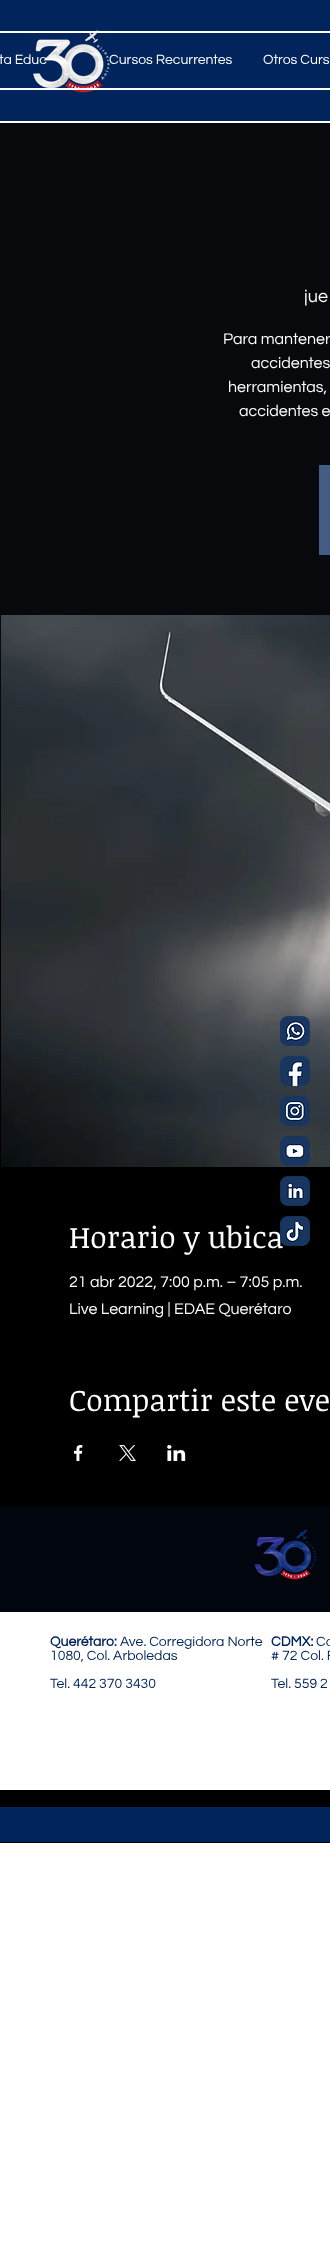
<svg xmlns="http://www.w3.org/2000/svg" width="330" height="2262">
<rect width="100%" height="100%" fill="#fff"/>
<rect width="330" height="121" fill="#00245b"/>
<image x="33" y="30" width="77" height="63" href="media/1.png"/>
<rect x="-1" y="32" width="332" height="57" fill="none" stroke="#fff" stroke-width="2"/>
<text x="-1" y="64" style="font-family:Questrial;font-size:14px;fill:#fff">ta Educ</text>
<text x="109" y="64" style="font-family:Questrial;font-size:14px;fill:#fff">Cursos Recurrentes</text>
<text x="263" y="64" style="font-family:Questrial;font-size:14px;fill:#fff">Otros Curs</text>
<rect y="123" width="330" height="768" fill="#07090d"/>
<text x="304" y="302" style="font-family:Questrial;font-size:18px;fill:#fff">jue</text>
<text x="223" y="344" style="font-family:Questrial;font-size:16px;fill:#fff">Para mantener</text>
<text x="251" y="368" style="font-family:Questrial;font-size:16px;fill:#fff">accidentes</text>
<text x="228" y="392" style="font-family:Questrial;font-size:16px;fill:#fff">herramientas,</text>
<text x="239" y="416" style="font-family:Questrial;font-size:16px;fill:#fff">accidentes e</text>
<rect x="319" y="465" width="11" height="90" fill="#425c84"/>
<rect y="891" width="330" height="615" fill="#000"/>
<image x="1" y="615" width="329" height="552" href="media/2.png"/>
<text x="69" y="1248" style="font-family:Noticia Text;font-size:30px;fill:#fff">Horario y ubica</text>
<text x="69" y="1287" style="font-family:Questrial;font-size:16px;fill:#fff">21 abr 2022, 7:00 p.m. – 7:05 p.m.</text>
<text x="69" y="1314" style="font-family:Questrial;font-size:16px;fill:#fff">Live Learning | EDAE Querétaro</text>
<text x="69" y="1411" style="font-family:Noticia Text;font-size:30px;fill:#fff">Compartir este eve</text>
<image x="74" y="1445" width="9" height="16" href="media/3.png"/>
<image x="119" y="1445" width="17" height="16" href="media/4.png"/>
<image x="167" y="1445" width="19" height="16" href="media/5.png"/>
<image x="280" y="1016" width="30" height="30" href="media/6.png"/>
<image x="280" y="1056" width="30" height="30" href="media/7.png"/>
<image x="280" y="1096" width="30" height="30" href="media/8.png"/>
<image x="280" y="1136" width="30" height="30" href="media/9.png"/>
<image x="280" y="1176" width="30" height="30" href="media/10.png"/>
<image x="280" y="1216" width="30" height="30" href="media/11.png"/>
<rect y="1506" width="330" height="106" fill="#00050e"/>
<image x="254" y="1529" width="62" height="51" href="media/12.png"/>
<text x="50" y="1646" style="font-family:Questrial;font-size:14px;font-weight:bold;fill:#00245b">Querétaro:</text>
<text x="120" y="1646" style="font-family:Questrial;font-size:14px;fill:#00245b">Ave. Corregidora Norte</text>
<text x="50" y="1660" style="font-family:Questrial;font-size:14px;fill:#00245b">1080, Col. Arboledas</text>
<text x="50" y="1688" style="font-family:Questrial;font-size:14px;fill:#00245b">Tel. 442 370 3430</text>
<text x="271" y="1646" style="font-family:Questrial;font-size:14px;font-weight:bold;fill:#00245b">CDMX:</text>
<text x="316" y="1646" style="font-family:Questrial;font-size:14px;fill:#00245b">Co</text>
<text x="271" y="1660" style="font-family:Questrial;font-size:14px;fill:#00245b"># 72 Col. F</text>
<text x="271" y="1688" style="font-family:Questrial;font-size:14px;fill:#00245b">Tel. 559 2</text>
<rect y="1790" width="330" height="53" fill="#000"/>
<rect y="1807" width="330" height="35" fill="#00245b"/>
</svg>
